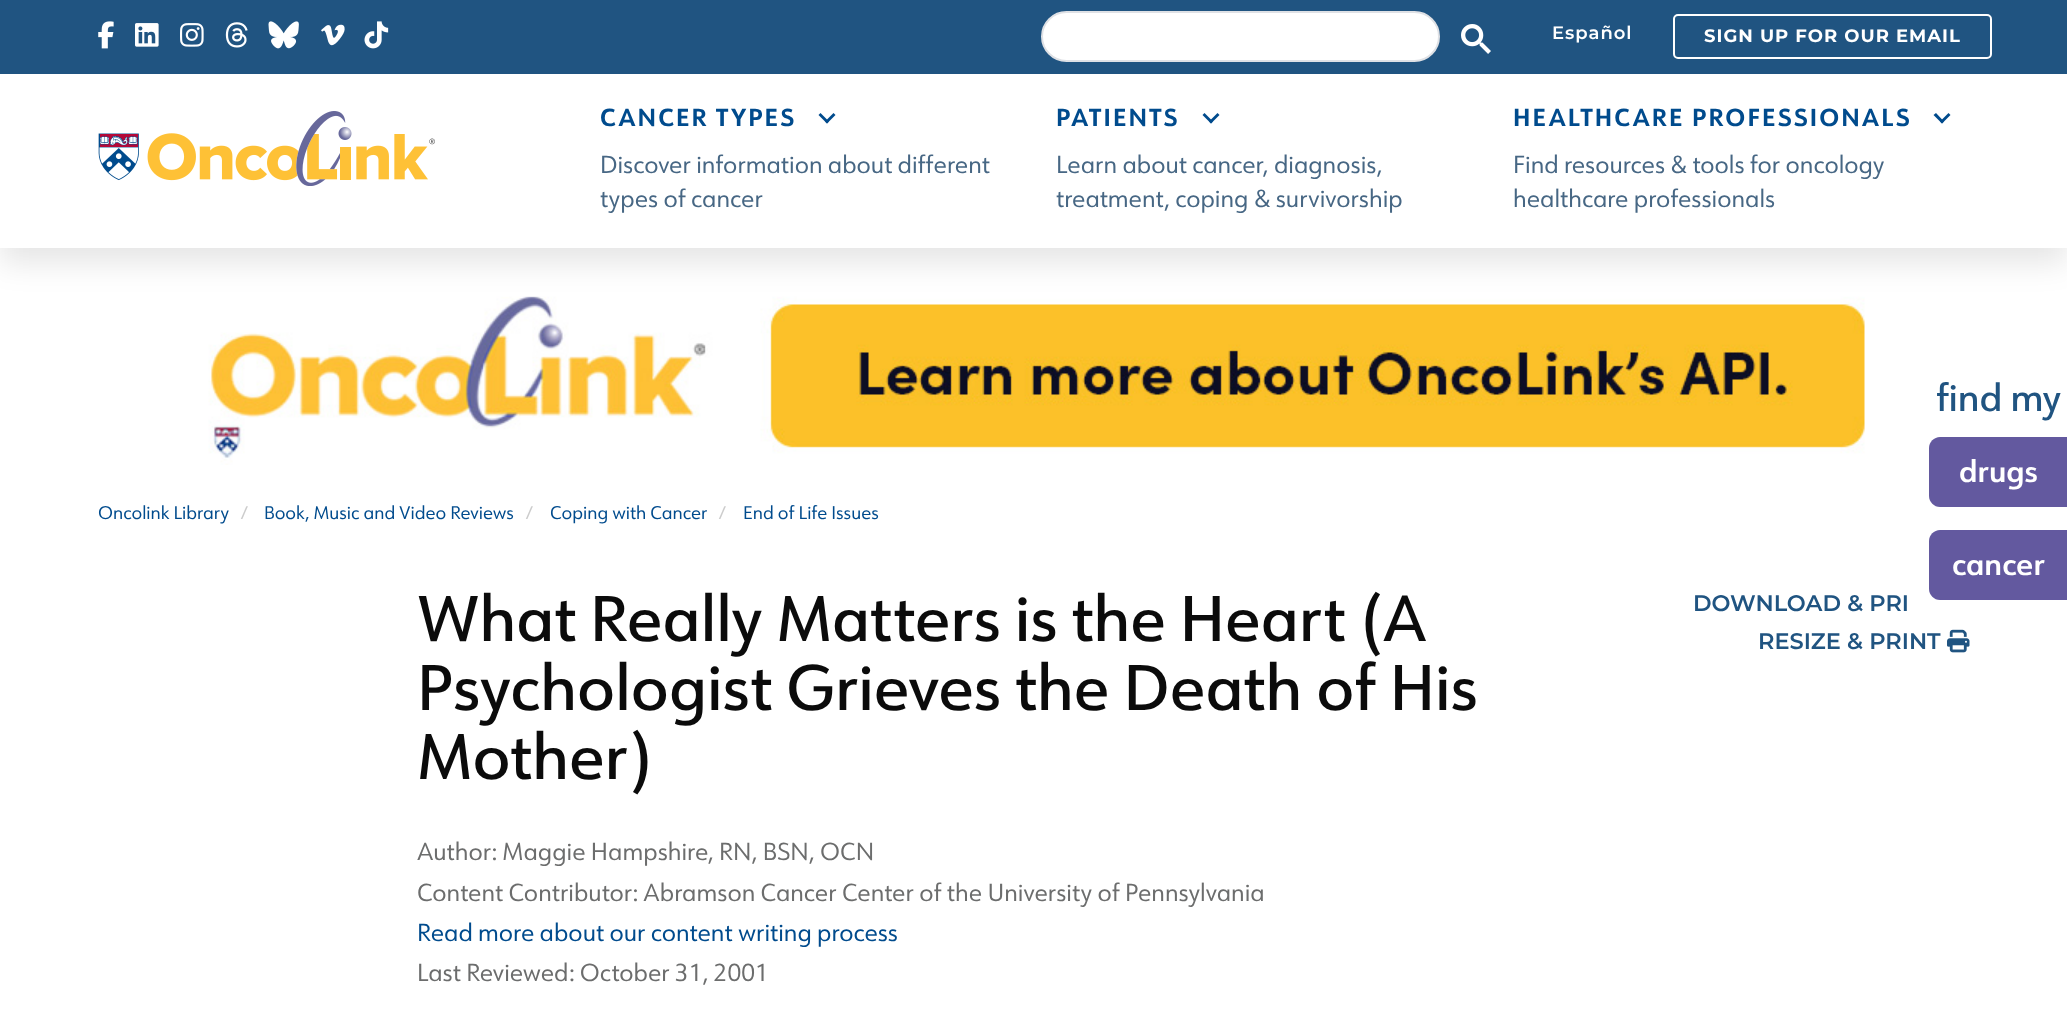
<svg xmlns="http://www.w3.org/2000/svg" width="2067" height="1027">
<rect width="100%" height="100%" fill="#fff"/>
<image x="208" y="296" width="1657" height="169" href="media/10.png"/>
<rect y="89" width="2067" height="174" fill="#0000001a" filter="blur(15px)"/>
<rect width="2067" height="74" fill="#205481"/>
<image x="98" y="21" width="16" height="28" href="media/1.png"/>
<image x="135" y="23" width="24" height="24" href="media/2.png"/>
<image x="180" y="23" width="24" height="24" href="media/3.png"/>
<image x="225" y="22" width="23" height="26" href="media/4.png"/>
<image x="268" y="21" width="31" height="28" href="media/5.png"/>
<image x="321" y="24" width="24" height="22" href="media/6.png"/>
<image x="364" y="21" width="25" height="28" href="media/7.png"/>
<rect x="1042" y="12" width="397" height="49" rx="24.5" fill="#fff" stroke="#dfe1e5" stroke-width="2"/>
<image x="1461" y="24" width="30" height="30" href="media/8.png"/>
<text x="1552" y="39" style="font-family:Montserrat;font-size:18px;font-weight:600;letter-spacing:1px;fill:#fff">Español</text>
<rect x="1674" y="15" width="317" height="43" rx="4" fill="none" stroke="#fff" stroke-width="2"/>
<text x="1704" y="42" style="font-family:Montserrat;font-size:18px;font-weight:bold;letter-spacing:1px;fill:#fff">SIGN UP FOR OUR EMAIL</text>
<rect y="74" width="2067" height="174" fill="#fff"/>
<image x="98" y="111" width="337" height="75" href="media/9.png"/>
<text x="600" y="126" style="font-family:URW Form;font-size:24px;font-weight:bold;letter-spacing:2.2px;fill:#004b8d">CANCER TYPES</text>
<path d="M833.5 113l2 2l-8.5 8.5l-2-2z" fill="#004b8d"/>
<path d="M820.5 113l8.5 8.5l-2 2l-8.5-8.5z" fill="#004b8d"/>
<text x="600" y="173" style="font-family:URW Form;font-size:24px;fill:#476784">Discover information about different</text>
<text x="600" y="207" style="font-family:URW Form;font-size:24px;fill:#476784">types of cancer</text>
<text x="1056" y="126" style="font-family:URW Form;font-size:24px;font-weight:bold;letter-spacing:2.2px;fill:#004b8d">PATIENTS</text>
<path d="M1217.5 113l2 2l-8.5 8.5l-2-2z" fill="#004b8d"/>
<path d="M1204.5 113l8.5 8.5l-2 2l-8.5-8.5z" fill="#004b8d"/>
<text x="1056" y="173" style="font-family:URW Form;font-size:24px;fill:#476784">Learn about cancer, diagnosis,</text>
<text x="1056" y="207" style="font-family:URW Form;font-size:24px;fill:#476784">treatment, coping &amp; survivorship</text>
<text x="1513" y="126" style="font-family:URW Form;font-size:24px;font-weight:bold;letter-spacing:2.2px;fill:#004b8d">HEALTHCARE PROFESSIONALS</text>
<path d="M1948.5 113l2 2l-8.5 8.5l-2-2z" fill="#004b8d"/>
<path d="M1936 113l8 8.5l-2 2l-8.5-8.5z" fill="#004b8d"/>
<text x="1513" y="173" style="font-family:URW Form;font-size:24px;fill:#476784">Find resources &amp; tools for oncology</text>
<text x="1513" y="207" style="font-family:URW Form;font-size:24px;fill:#476784">healthcare professionals</text>
<text x="1936" y="411" style="font-family:URW Form;font-size:37.5px;font-weight:500;fill:#205481">find my</text>
<path d="M1940 437h127v70h-127c-6 0-11-5-11-11v-48c0-6 5-11 11-11z" fill="#63599f"/>
<text x="1959" y="482" style="font-family:URW Form;font-size:30px;font-weight:600;fill:#fff">drugs</text>
<path d="M1940 530h127v70h-127c-6 0-11-5-11-11v-48c0-6 5-11 11-11z" fill="#63599f"/>
<text x="1952" y="575" style="font-family:URW Form;font-size:30px;font-weight:600;fill:#fff">cancer</text>
<text x="417" y="641" style="font-family:URW Form;font-size:63px;font-weight:500;fill:#0b0b0b">What Really Matters is the Heart (A</text>
<text x="417" y="710" style="font-family:URW Form;font-size:63px;font-weight:500;fill:#0b0b0b">Psychologist Grieves the Death of His</text>
<text x="417" y="779" style="font-family:URW Form;font-size:63px;font-weight:500;fill:#0b0b0b">Mother)</text>
<text x="417" y="860" style="font-family:URW Form;font-size:24px;fill:#6c6d6d">Author: Maggie Hampshire, RN, BSN, OCN</text>
<text x="417" y="901" style="font-family:URW Form;font-size:24px;fill:#6c6d6d">Content Contributor: Abramson Cancer Center of the University of Pennsylvania</text>
<text x="417" y="941" style="font-family:URW Form;font-size:24px;fill:#004b8d">Read more about our content writing process</text>
<text x="417" y="981" style="font-family:URW Form;font-size:24px;fill:#6c6d6d">Last Reviewed: October 31, 2001</text>
<text x="98" y="519" style="font-family:URW Form;font-size:18px;fill:#004b8d">Oncolink Library</text>
<text x="240" y="519" style="font-family:URW Form;font-size:18px;fill:#ccc">/</text>
<text x="264" y="519" style="font-family:URW Form;font-size:18px;fill:#004b8d">Book, Music and Video Reviews</text>
<text x="525" y="519" style="font-family:URW Form;font-size:18px;fill:#ccc">/</text>
<text x="550" y="519" style="font-family:URW Form;font-size:18px;fill:#004b8d">Coping with Cancer</text>
<text x="718" y="519" style="font-family:URW Form;font-size:18px;fill:#ccc">/</text>
<text x="743" y="519" style="font-family:URW Form;font-size:18px;fill:#004b8d">End of Life Issues</text>
<text x="1693" y="611" style="font-family:Montserrat;font-size:22.5px;font-weight:600;fill:#205481">DOWNLOAD &amp; PRI</text>
<text x="1758" y="649" style="font-family:Montserrat;font-size:22.5px;font-weight:600;fill:#205481">RESIZE &amp; PRINT</text>
<image x="1947" y="629" width="23" height="24" href="media/11.png"/>
</svg>
